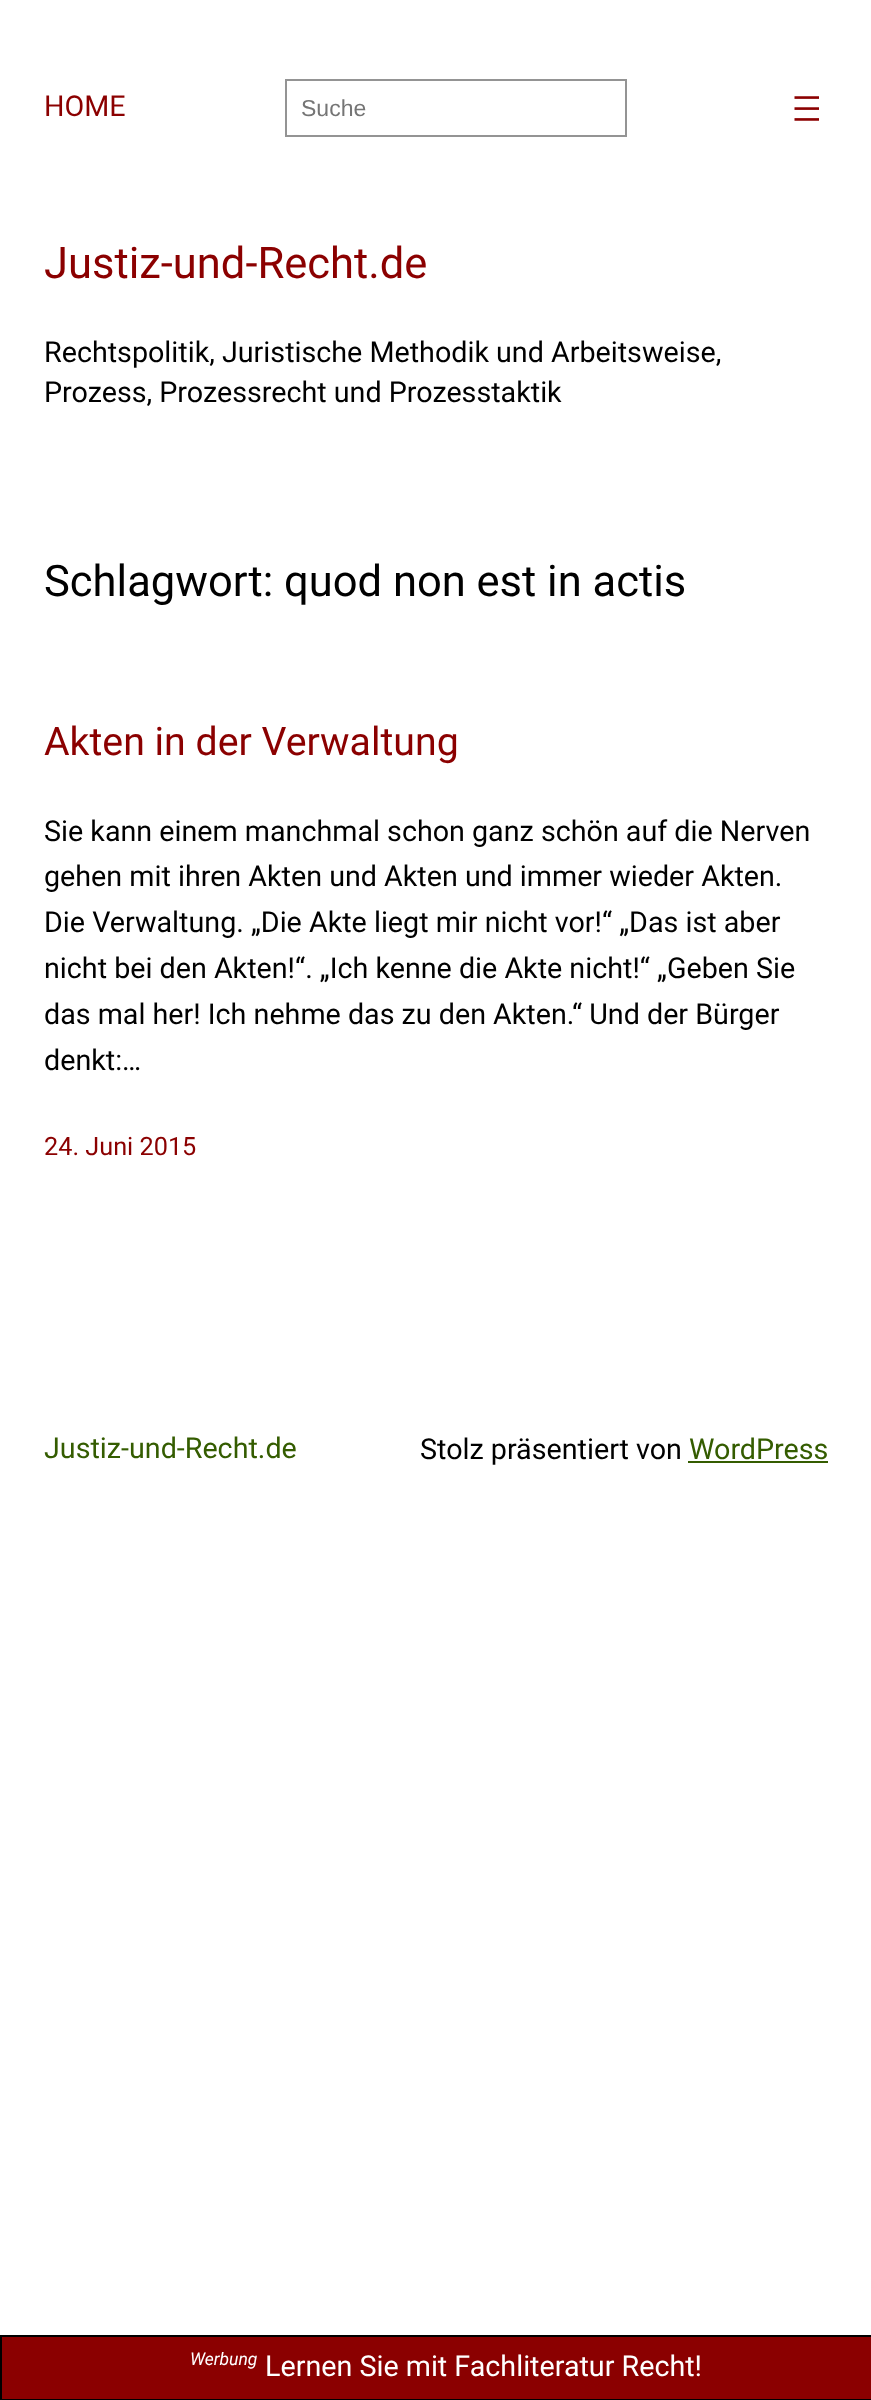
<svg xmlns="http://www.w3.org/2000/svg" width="871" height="2400">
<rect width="100%" height="100%" fill="#fff"/>
<text x="44" y="116" style="font-family:Roboto;font-size:28.7px;fill:#8b0000">HOME</text>
<rect x="286" y="80" width="340" height="56" fill="none" stroke="#949494" stroke-width="2"/>
<text x="301" y="116" style="font-family:Liberation Sans;font-size:23px;fill:#757575">Suche</text>
<image x="794" y="96" width="25" height="25" href="media/1.png"/>
<text x="44" y="278" style="font-family:Roboto;font-size:43.5px;fill:#8b0000">Justiz-und-Recht.de</text>
<text x="44" y="362" style="font-family:Roboto;font-size:28.7px;fill:#000">Rechtspolitik, Juristische Methodik und Arbeitsweise,</text>
<text x="44" y="402" style="font-family:Roboto;font-size:28.7px;fill:#000">Prozess, Prozessrecht und Prozesstaktik</text>
<text x="44" y="596" style="font-family:Roboto;font-size:43.5px;fill:#000">Schlagwort: quod non est in actis</text>
<text x="44" y="755" style="font-family:Roboto;font-size:39.25px;fill:#8b0000">Akten in der Verwaltung</text>
<text x="44" y="841" style="font-family:Roboto;font-size:28.7px;fill:#000">Sie kann einem manchmal schon ganz schön auf die Nerven</text>
<text x="44" y="886" style="font-family:Roboto;font-size:28.7px;fill:#000">gehen mit ihren Akten und Akten und immer wieder Akten.</text>
<text x="44" y="932" style="font-family:Roboto;font-size:28.7px;fill:#000">Die Verwaltung. „Die Akte liegt mir nicht vor!“ „Das ist aber</text>
<text x="44" y="978" style="font-family:Roboto;font-size:28.7px;fill:#000">nicht bei den Akten!“. „Ich kenne die Akte nicht!“ „Geben Sie</text>
<text x="44" y="1024" style="font-family:Roboto;font-size:28.7px;fill:#000">das mal her! Ich nehme das zu den Akten.“ Und der Bürger</text>
<text x="44" y="1070" style="font-family:Roboto;font-size:28.7px;fill:#000">denkt:…</text>
<text x="44" y="1155" style="font-family:Roboto;font-size:25.25px;fill:#8b0000">24. Juni 2015</text>
<text x="44" y="1458" style="font-family:Roboto;font-size:28.7px;fill:#345c00">Justiz-und-Recht.de</text>
<text x="420" y="1459" style="font-family:Roboto;font-size:28.7px;fill:#000">Stolz präsentiert von</text>
<text x="689" y="1459" style="font-family:Roboto;font-size:28.7px;fill:#345c00">WordPress</text>
<rect x="688" y="1461" width="140" height="2" fill="#345c00"/>
<rect x="1" y="2336" width="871" height="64" fill="#8b0000" stroke="#000" stroke-width="2"/>
<text x="190" y="2365" style="font-family:Roboto;font-size:17.5px;font-style:italic;fill:#fff">Werbung</text>
<text x="265" y="2376" style="font-family:Roboto;font-size:28.7px;fill:#fff">Lernen Sie mit Fachliteratur Recht!</text>
</svg>
